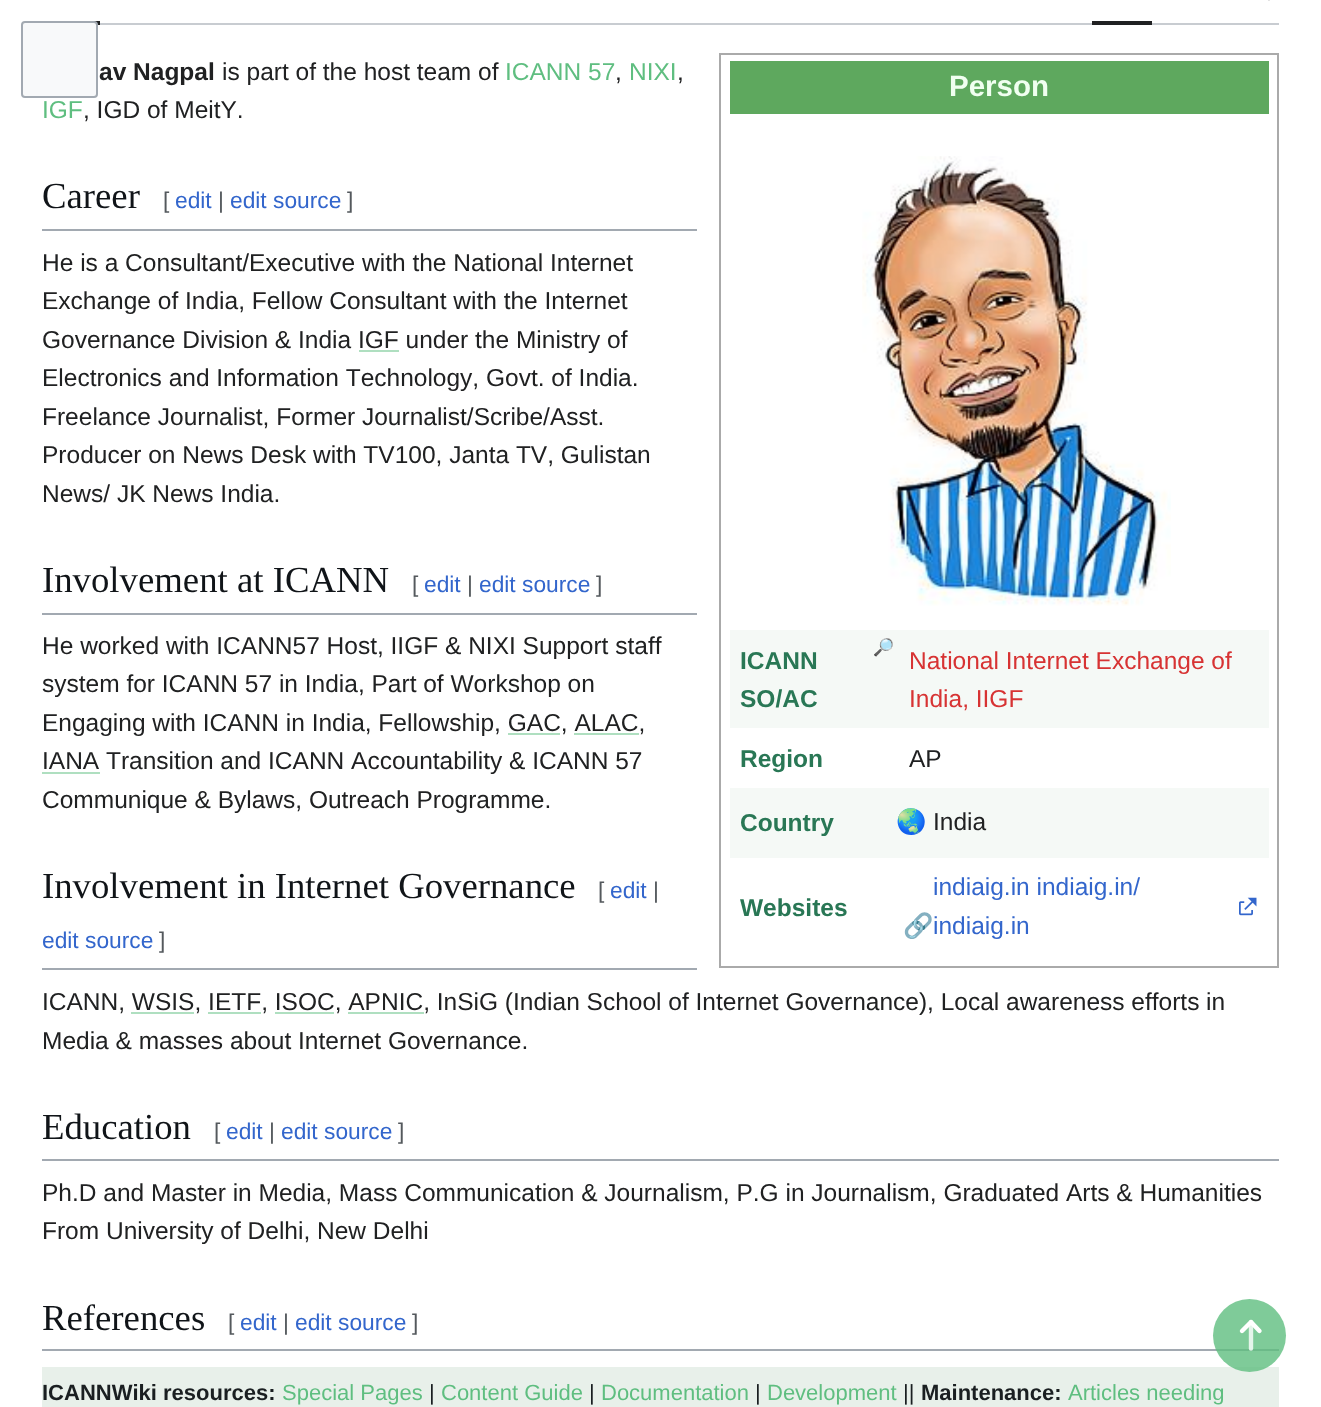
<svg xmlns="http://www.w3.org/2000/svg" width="1321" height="1407">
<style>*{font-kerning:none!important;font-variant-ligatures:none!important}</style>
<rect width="100%" height="100%" fill="#fff"/>
<rect x="100" y="23" width="1179" height="2" fill="#c8ccd1"/>
<rect x="94" y="21" width="6" height="4" fill="#202122"/>
<path d="M1276.5-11l-7.5 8l-8-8l-1.5 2l9.5 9.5l9-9.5z" fill="#202122"/>
<rect x="1092" y="21" width="60" height="4" fill="#202122"/>
<rect x="22" y="22" width="75" height="75" rx="3" fill="#f8f9fa" stroke="#a2a9b1" stroke-width="2"/>
<text x="99" y="80" style="font-family:Liberation Sans;font-size:24.5px;font-weight:bold;fill:#202122">av Nagpal</text>
<text x="222" y="80" style="font-family:Liberation Sans;font-size:24.5px;fill:#202122">is part of the host team of</text>
<text x="505" y="80" style="font-family:Liberation Sans;font-size:24.5px;fill:#5fbe80">ICANN 57</text>
<text x="615" y="80" style="font-family:Liberation Sans;font-size:24.5px;fill:#202122">,</text>
<text x="629" y="80" style="font-family:Liberation Sans;font-size:24.5px;fill:#5fbe80">NIXI</text>
<text x="677" y="80" style="font-family:Liberation Sans;font-size:24.5px;fill:#202122">,</text>
<text x="42" y="118" style="font-family:Liberation Sans;font-size:24.5px;fill:#5fbe80">IGF</text>
<text x="83" y="118" style="font-family:Liberation Sans;font-size:24.5px;fill:#202122">, IGD of MeitY.</text>
<rect x="720" y="54" width="558" height="913" fill="none" stroke="#aaa" stroke-width="2"/>
<rect x="730" y="61" width="539" height="53" fill="#5ea85e"/>
<text x="949" y="96" style="font-family:Liberation Sans;font-size:29.5px;font-weight:bold;fill:#f0fff0">Person</text>
<image x="862" y="156" width="309" height="450" href="media/1.png"/>
<rect x="730" y="630" width="539" height="98" fill="#f5f9f6"/>
<text x="873" y="653" style="font-family:Noto Color Emoji;font-size:17px;fill:#8b8d8c">🔎</text>
<text x="740" y="669" style="font-family:Liberation Sans;font-size:24.5px;font-weight:bold;fill:#297755">ICANN</text>
<text x="740" y="707" style="font-family:Liberation Sans;font-size:24.5px;font-weight:bold;fill:#297755">SO/AC</text>
<text x="909" y="669" style="font-family:Liberation Sans;font-size:24.5px;fill:#d73333">National Internet Exchange of</text>
<text x="909" y="707" style="font-family:Liberation Sans;font-size:24.5px;fill:#d73333">India, IIGF</text>
<text x="740" y="767" style="font-family:Liberation Sans;font-size:24.5px;font-weight:bold;fill:#297755">Region</text>
<text x="909" y="767" style="font-family:Liberation Sans;font-size:24.5px;fill:#202122">AP</text>
<rect x="730" y="788" width="539" height="70" fill="#f5f9f6"/>
<text x="740" y="831" style="font-family:Liberation Sans;font-size:24.5px;font-weight:bold;fill:#297755">Country</text>
<text x="896" y="830" style="font-family:Noto Color Emoji;font-size:24.5px;fill:#202122">🌏</text>
<text x="933" y="830" style="font-family:Liberation Sans;font-size:24.5px;fill:#202122">India</text>
<text x="740" y="916" style="font-family:Liberation Sans;font-size:24.5px;font-weight:bold;fill:#297755">Websites</text>
<text x="903" y="934" style="font-family:Noto Color Emoji;font-size:24.5px;fill:#202122">🔗</text>
<image x="1239" y="897" width="18" height="19" href="media/2.png"/>
<text x="933" y="895" style="font-family:Liberation Sans;font-size:24.5px;fill:#36c">indiaig.in indiaig.in/</text>
<text x="933" y="934" style="font-family:Liberation Sans;font-size:24.5px;fill:#36c">indiaig.in</text>
<rect x="42" y="229" width="655" height="2" fill="#a2a9b1"/>
<text x="42" y="208" style="font-family:Liberation Serif;font-size:36.75px;fill:#101418">Career</text>
<text x="163" y="208" style="font-family:Liberation Sans;font-size:22.75px;fill:#54595d">[</text>
<text x="175" y="208" style="font-family:Liberation Sans;font-size:22.75px;fill:#36c">edit</text>
<text x="218" y="208" style="font-family:Liberation Sans;font-size:22.75px;fill:#54595d">|</text>
<text x="230" y="208" style="font-family:Liberation Sans;font-size:22.75px;fill:#36c">edit source</text>
<text x="347" y="208" style="font-family:Liberation Sans;font-size:22.75px;fill:#54595d">]</text>
<text x="42" y="271" style="font-family:Liberation Sans;font-size:24.5px;fill:#202122">He is a Consultant/Executive with the National Internet</text>
<text x="42" y="309" style="font-family:Liberation Sans;font-size:24.5px;fill:#202122">Exchange of India, Fellow Consultant with the Internet</text>
<text x="42" y="348" style="font-family:Liberation Sans;font-size:24.5px;fill:#202122">Governance Division &amp; India IGF under the Ministry of</text>
<rect x="359" y="350" width="40" height="2" fill="#afdfc0"/>
<text x="42" y="386" style="font-family:Liberation Sans;font-size:24.5px;fill:#202122">Electronics and Information Technology,</text>
<text x="486" y="386" style="font-family:Liberation Sans;font-size:24.5px;fill:#202122">Govt. of India.</text>
<text x="42" y="425" style="font-family:Liberation Sans;font-size:24.5px;fill:#202122">Freelance Journalist, Former Journalist/Scribe/Asst.</text>
<text x="42" y="463" style="font-family:Liberation Sans;font-size:24.5px;fill:#202122">Producer on News Desk with TV100, Janta TV, Gulistan</text>
<text x="42" y="502" style="font-family:Liberation Sans;font-size:24.5px;fill:#202122">News/ JK News India.</text>
<rect x="42" y="613" width="655" height="2" fill="#a2a9b1"/>
<text x="42" y="592" style="font-family:Liberation Serif;font-size:36.75px;fill:#101418">Involvement at ICANN</text>
<text x="412" y="592" style="font-family:Liberation Sans;font-size:22.75px;fill:#54595d">[</text>
<text x="424" y="592" style="font-family:Liberation Sans;font-size:22.75px;fill:#36c">edit</text>
<text x="467" y="592" style="font-family:Liberation Sans;font-size:22.75px;fill:#54595d">|</text>
<text x="479" y="592" style="font-family:Liberation Sans;font-size:22.75px;fill:#36c">edit source</text>
<text x="596" y="592" style="font-family:Liberation Sans;font-size:22.75px;fill:#54595d">]</text>
<text x="42" y="654" style="font-family:Liberation Sans;font-size:24.5px;fill:#202122">He worked with ICANN57 Host, IIGF &amp; NIXI Support staff</text>
<text x="42" y="692" style="font-family:Liberation Sans;font-size:24.5px;fill:#202122">system for ICANN 57 in India, Part of Workshop on</text>
<text x="42" y="731" style="font-family:Liberation Sans;font-size:24.5px;fill:#202122">Engaging with ICANN in India, Fellowship, GAC, ALAC,</text>
<rect x="508" y="733" width="52" height="2" fill="#afdfc0"/>
<rect x="574" y="733" width="65" height="2" fill="#afdfc0"/>
<rect x="42" y="772" width="58" height="2" fill="#afdfc0"/>
<text x="42" y="769" style="font-family:Liberation Sans;font-size:24.5px;fill:#202122">IANA Transition and ICANN Accountability &amp; ICANN 57</text>
<text x="42" y="808" style="font-family:Liberation Sans;font-size:24.5px;fill:#202122">Communique &amp; Bylaws, Outreach Programme.</text>
<rect x="42" y="968" width="655" height="2" fill="#a2a9b1"/>
<text x="42" y="898" style="font-family:Liberation Serif;font-size:36.75px;fill:#101418">Involvement in Internet Governance</text>
<text x="598" y="898" style="font-family:Liberation Sans;font-size:22.75px;fill:#54595d">[</text>
<text x="610" y="898" style="font-family:Liberation Sans;font-size:22.75px;fill:#36c">edit</text>
<text x="653" y="898" style="font-family:Liberation Sans;font-size:22.75px;fill:#54595d">|</text>
<text x="42" y="948" style="font-family:Liberation Sans;font-size:22.75px;fill:#36c">edit source</text>
<text x="159" y="948" style="font-family:Liberation Sans;font-size:22.75px;fill:#54595d">]</text>
<text x="42" y="1010" style="font-family:Liberation Sans;font-size:24.5px;fill:#202122">ICANN, WSIS, IETF, ISOC, APNIC, InSiG (Indian School of Internet Governance), Local awareness efforts</text>
<text x="1206" y="1010" style="font-family:Liberation Sans;font-size:24.5px;fill:#202122">in</text>
<rect x="131" y="1012" width="63" height="2" fill="#afdfc0"/>
<rect x="208" y="1012" width="53" height="2" fill="#afdfc0"/>
<rect x="275" y="1012" width="59" height="2" fill="#afdfc0"/>
<rect x="348" y="1012" width="76" height="2" fill="#afdfc0"/>
<text x="42" y="1049" style="font-family:Liberation Sans;font-size:24.5px;fill:#202122">Media &amp; masses about Internet Governance.</text>
<rect x="42" y="1159" width="1237" height="2" fill="#a2a9b1"/>
<text x="42" y="1139" style="font-family:Liberation Serif;font-size:36.75px;fill:#101418">Education</text>
<text x="214" y="1139" style="font-family:Liberation Sans;font-size:22.75px;fill:#54595d">[</text>
<text x="226" y="1139" style="font-family:Liberation Sans;font-size:22.75px;fill:#36c">edit</text>
<text x="269" y="1139" style="font-family:Liberation Sans;font-size:22.75px;fill:#54595d">|</text>
<text x="281" y="1139" style="font-family:Liberation Sans;font-size:22.75px;fill:#36c">edit source</text>
<text x="398" y="1139" style="font-family:Liberation Sans;font-size:22.75px;fill:#54595d">]</text>
<text x="42" y="1201" style="font-family:Liberation Sans;font-size:24.5px;fill:#202122">Ph.D and Master in Media, Mass Communication &amp; Journalism, P.G in Journalism, Graduated Arts &amp; Humanities</text>
<text x="42" y="1239" style="font-family:Liberation Sans;font-size:24.5px;fill:#202122">From University of Delhi, New Delhi</text>
<rect x="42" y="1349" width="1237" height="2" fill="#a2a9b1"/>
<text x="42" y="1330" style="font-family:Liberation Serif;font-size:36.75px;fill:#101418">References</text>
<text x="228" y="1330" style="font-family:Liberation Sans;font-size:22.75px;fill:#54595d">[</text>
<text x="240" y="1330" style="font-family:Liberation Sans;font-size:22.75px;fill:#36c">edit</text>
<text x="283" y="1330" style="font-family:Liberation Sans;font-size:22.75px;fill:#54595d">|</text>
<text x="295" y="1330" style="font-family:Liberation Sans;font-size:22.75px;fill:#36c">edit source</text>
<text x="412" y="1330" style="font-family:Liberation Sans;font-size:22.75px;fill:#54595d">]</text>
<rect x="42" y="1367" width="1237" height="40" fill="#e8f0ea"/>
<text x="42" y="1400" style="font-family:Liberation Sans;font-size:22px;font-weight:bold;fill:#1a1f21">ICANNWiki resources:</text>
<text x="282" y="1400" style="font-family:Liberation Sans;font-size:22px;fill:#5fbe80">Special Pages</text>
<text x="429" y="1400" style="font-family:Liberation Sans;font-size:22px;fill:#1a1f21">|</text>
<text x="441" y="1400" style="font-family:Liberation Sans;font-size:22px;fill:#5fbe80">Content Guide</text>
<text x="589" y="1400" style="font-family:Liberation Sans;font-size:22px;fill:#1a1f21">|</text>
<text x="601" y="1400" style="font-family:Liberation Sans;font-size:22px;fill:#5fbe80">Documentation</text>
<text x="755" y="1400" style="font-family:Liberation Sans;font-size:22px;fill:#1a1f21">|</text>
<text x="767" y="1400" style="font-family:Liberation Sans;font-size:22px;fill:#5fbe80">Development</text>
<text x="903" y="1400" style="font-family:Liberation Sans;font-size:22px;fill:#1a1f21">||</text>
<text x="921" y="1400" style="font-family:Liberation Sans;font-size:22px;font-weight:bold;fill:#1a1f21">Maintenance:</text>
<text x="1068" y="1400" style="font-family:Liberation Sans;font-size:22px;fill:#5fbe80">Articles needing</text>
<circle cx="1249.5" cy="1335.5" r="36.5" fill="#5fbe80cc"/>
<path d="M1242 1331l9-9l8.5 9" fill="none" stroke="#fff" stroke-width="4.4" stroke-linecap="round" stroke-linejoin="round"/>
<path d="M1251 1348.5v-26.5" fill="none" stroke="#ffffffcc" stroke-width="4.4" stroke-linecap="round" stroke-linejoin="round"/>
</svg>
